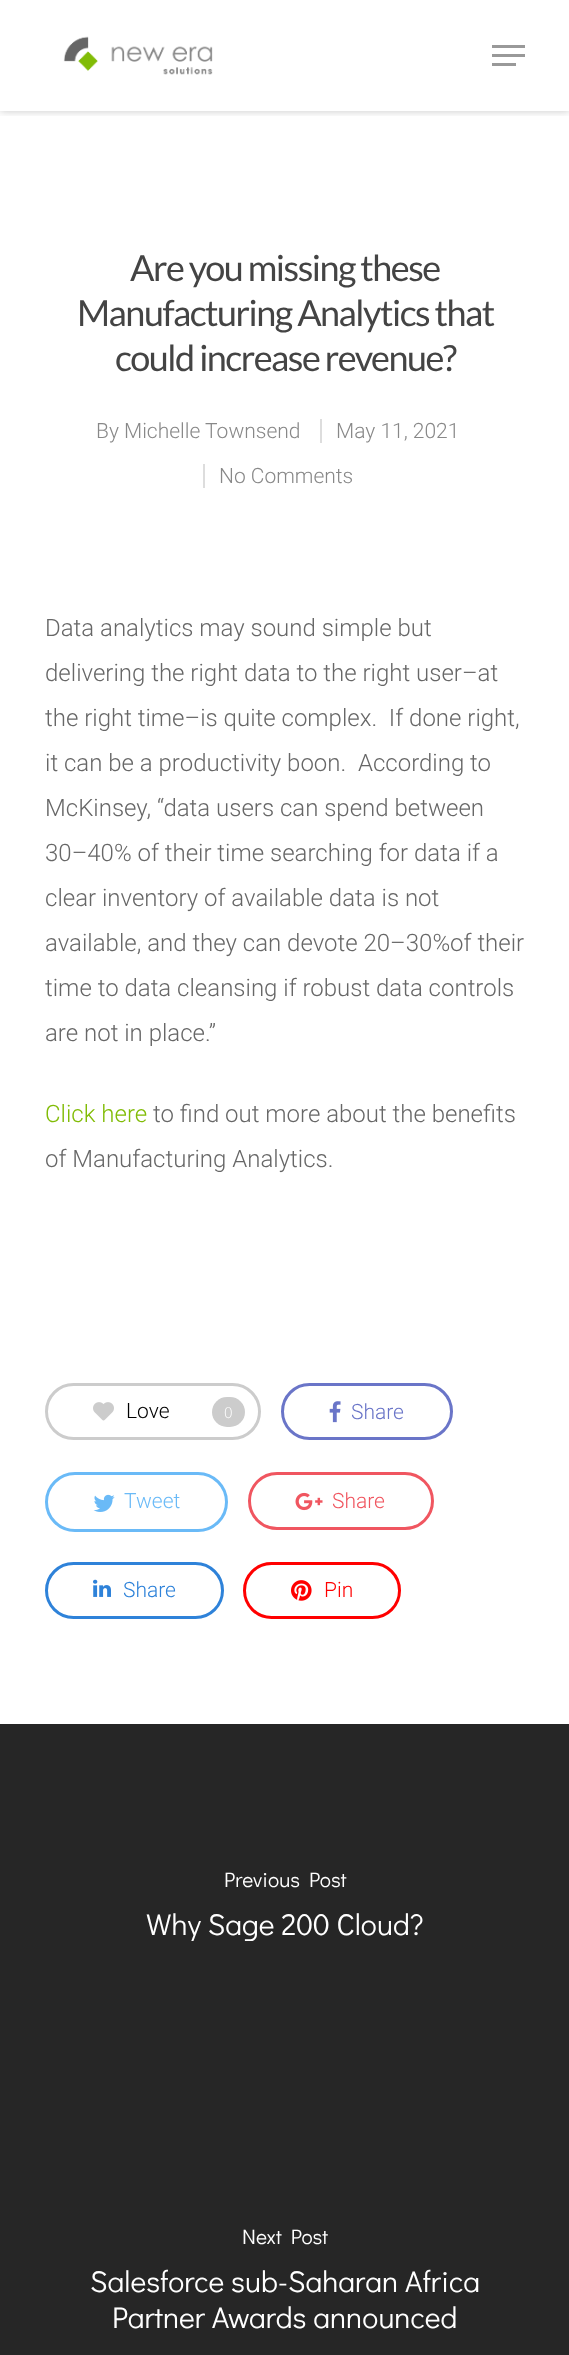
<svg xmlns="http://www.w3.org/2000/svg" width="569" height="2355">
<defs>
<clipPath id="clip1"><rect x="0" y="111" width="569" height="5"/></clipPath>
</defs>
<rect width="100%" height="100%" fill="#fff"/>
<g clip-path="url(#clip1)">
<rect width="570" height="111" fill="#00000038" filter="blur(4px)"/>
</g>
<image x="63" y="36" width="150" height="39" href="media/1.png"/>
<rect x="492" y="45" width="33" height="3" fill="#999"/>
<rect x="492" y="63" width="24" height="3" fill="#999"/>
<rect x="492" y="54" width="33" height="3" fill="#999"/>
<text x="130" y="281" style="font-family:Lato;font-size:36px;letter-spacing:-1.5px;fill:#444">Are you missing these</text>
<text x="77" y="326" style="font-family:Lato;font-size:36px;letter-spacing:-1.5px;fill:#444">Manufacturing Analytics that</text>
<text x="115" y="371" style="font-family:Lato;font-size:36px;letter-spacing:-1.5px;fill:#444">could increase revenue?</text>
<text x="96" y="438" style="font-family:Roboto;font-size:21px;font-weight:300;fill:#888">By Michelle Townsend</text>
<rect x="320" y="419" width="2" height="24" fill="#ddd"/>
<text x="336" y="438" style="font-family:Roboto;font-size:21px;font-weight:300;fill:#888">May 11, 2021</text>
<rect x="203" y="464" width="2" height="24" fill="#ddd"/>
<text x="219" y="483" style="font-family:Roboto;font-size:21px;font-weight:300;fill:#888">No Comments</text>
<text x="45" y="636" style="font-family:Roboto;font-size:24px;font-weight:300;fill:#676767">Data analytics may sound simple but</text>
<text x="45" y="681" style="font-family:Roboto;font-size:24px;font-weight:300;fill:#676767">delivering the right data to the right user–at</text>
<text x="45" y="726" style="font-family:Roboto;font-size:24px;font-weight:300;fill:#676767" xml:space="preserve">the right time–is quite complex.  If done right,</text>
<text x="45" y="771" style="font-family:Roboto;font-size:24px;font-weight:300;fill:#676767" xml:space="preserve">it can be a productivity boon.  According to</text>
<text x="45" y="816" style="font-family:Roboto;font-size:24px;font-weight:300;fill:#676767">McKinsey, “data users can spend between</text>
<text x="45" y="861" style="font-family:Roboto;font-size:24px;font-weight:300;fill:#676767">30–40% of their time searching for data if a</text>
<text x="45" y="906" style="font-family:Roboto;font-size:24px;font-weight:300;fill:#676767">clear inventory of available data is not</text>
<text x="45" y="951" style="font-family:Roboto;font-size:24px;font-weight:300;fill:#676767">available, and they can devote 20–30%of their</text>
<text x="45" y="996" style="font-family:Roboto;font-size:24px;font-weight:300;fill:#676767">time to data cleansing if robust data controls</text>
<text x="45" y="1041" style="font-family:Roboto;font-size:24px;font-weight:300;fill:#676767">are not in place.”</text>
<text x="45" y="1122" style="font-family:Roboto;font-size:24px;font-weight:300;fill:#81bc06">Click here</text>
<text x="153" y="1122" style="font-family:Roboto;font-size:24px;font-weight:300;fill:#676767">to find out more about the benefits</text>
<text x="45" y="1167" style="font-family:Roboto;font-size:24px;font-weight:300;fill:#676767">of Manufacturing Analytics.</text>
<rect x="46.5" y="1384.5" width="213" height="54" rx="27" fill="none" stroke="#ccc" stroke-width="3"/>
<image x="93" y="1402" width="21" height="19" href="media/2.png"/>
<text x="126" y="1418" style="font-family:Roboto;font-size:21px;font-weight:300;fill:#000">Love</text>
<rect x="212" y="1397" width="33" height="30" rx="15" fill="#ccc"/>
<text x="224" y="1418" style="font-family:Open Sans;font-size:15px;font-weight:300;fill:#fff">0</text>
<rect x="282.5" y="1384.5" width="169" height="54" rx="27" fill="none" stroke="#6a75c8" stroke-width="3"/>
<image x="329" y="1401" width="12" height="22" href="media/3.png"/>
<text x="351" y="1419" style="font-family:Roboto;font-size:21px;font-weight:300;fill:#6a75c8">Share</text>
<rect x="46.5" y="1473.5" width="180" height="57" rx="28.5" fill="none" stroke="#6abaf7" stroke-width="3"/>
<image x="93" y="1494" width="22" height="18" href="media/4.png"/>
<text x="124" y="1508" style="font-family:Roboto;font-size:21px;font-weight:300;fill:#6abaf7">Tweet</text>
<rect x="249.5" y="1473.5" width="183" height="55" rx="27.5" fill="none" stroke="#f05660" stroke-width="3"/>
<image x="295" y="1492" width="28" height="19" href="media/5.png"/>
<text x="332" y="1508" style="font-family:Roboto;font-size:21px;font-weight:300;fill:#f05660">Share</text>
<rect x="46.5" y="1563.5" width="176" height="54" rx="27" fill="none" stroke="#2e82d9" stroke-width="3"/>
<image x="93" y="1579" width="18" height="18" href="media/6.png"/>
<text x="123" y="1597" style="font-family:Roboto;font-size:21px;font-weight:300;fill:#2e82d9">Share</text>
<rect x="244.5" y="1563.5" width="155" height="54" rx="27" fill="none" stroke="#f00" stroke-width="3"/>
<image x="291" y="1580" width="21" height="21" href="media/7.png"/>
<text x="324" y="1597" style="font-family:Roboto;font-size:21px;font-weight:300;fill:#f00">Pin</text>
<rect y="1724" width="569" height="631" fill="#262626"/>
<text x="224" y="1887" style="font-family:Didact Gothic;font-size:21px;fill:#fff">Previous Post</text>
<text x="146" y="1935" style="font-family:Didact Gothic;font-size:30px;fill:#fff">Why Sage 200 Cloud?</text>
<text x="242" y="2244" style="font-family:Didact Gothic;font-size:21px;fill:#fff">Next Post</text>
<text x="90" y="2292" style="font-family:Didact Gothic;font-size:30px;fill:#fff">Salesforce sub-Saharan Africa</text>
<text x="112" y="2328" style="font-family:Didact Gothic;font-size:30px;fill:#fff">Partner Awards announced</text>
</svg>
